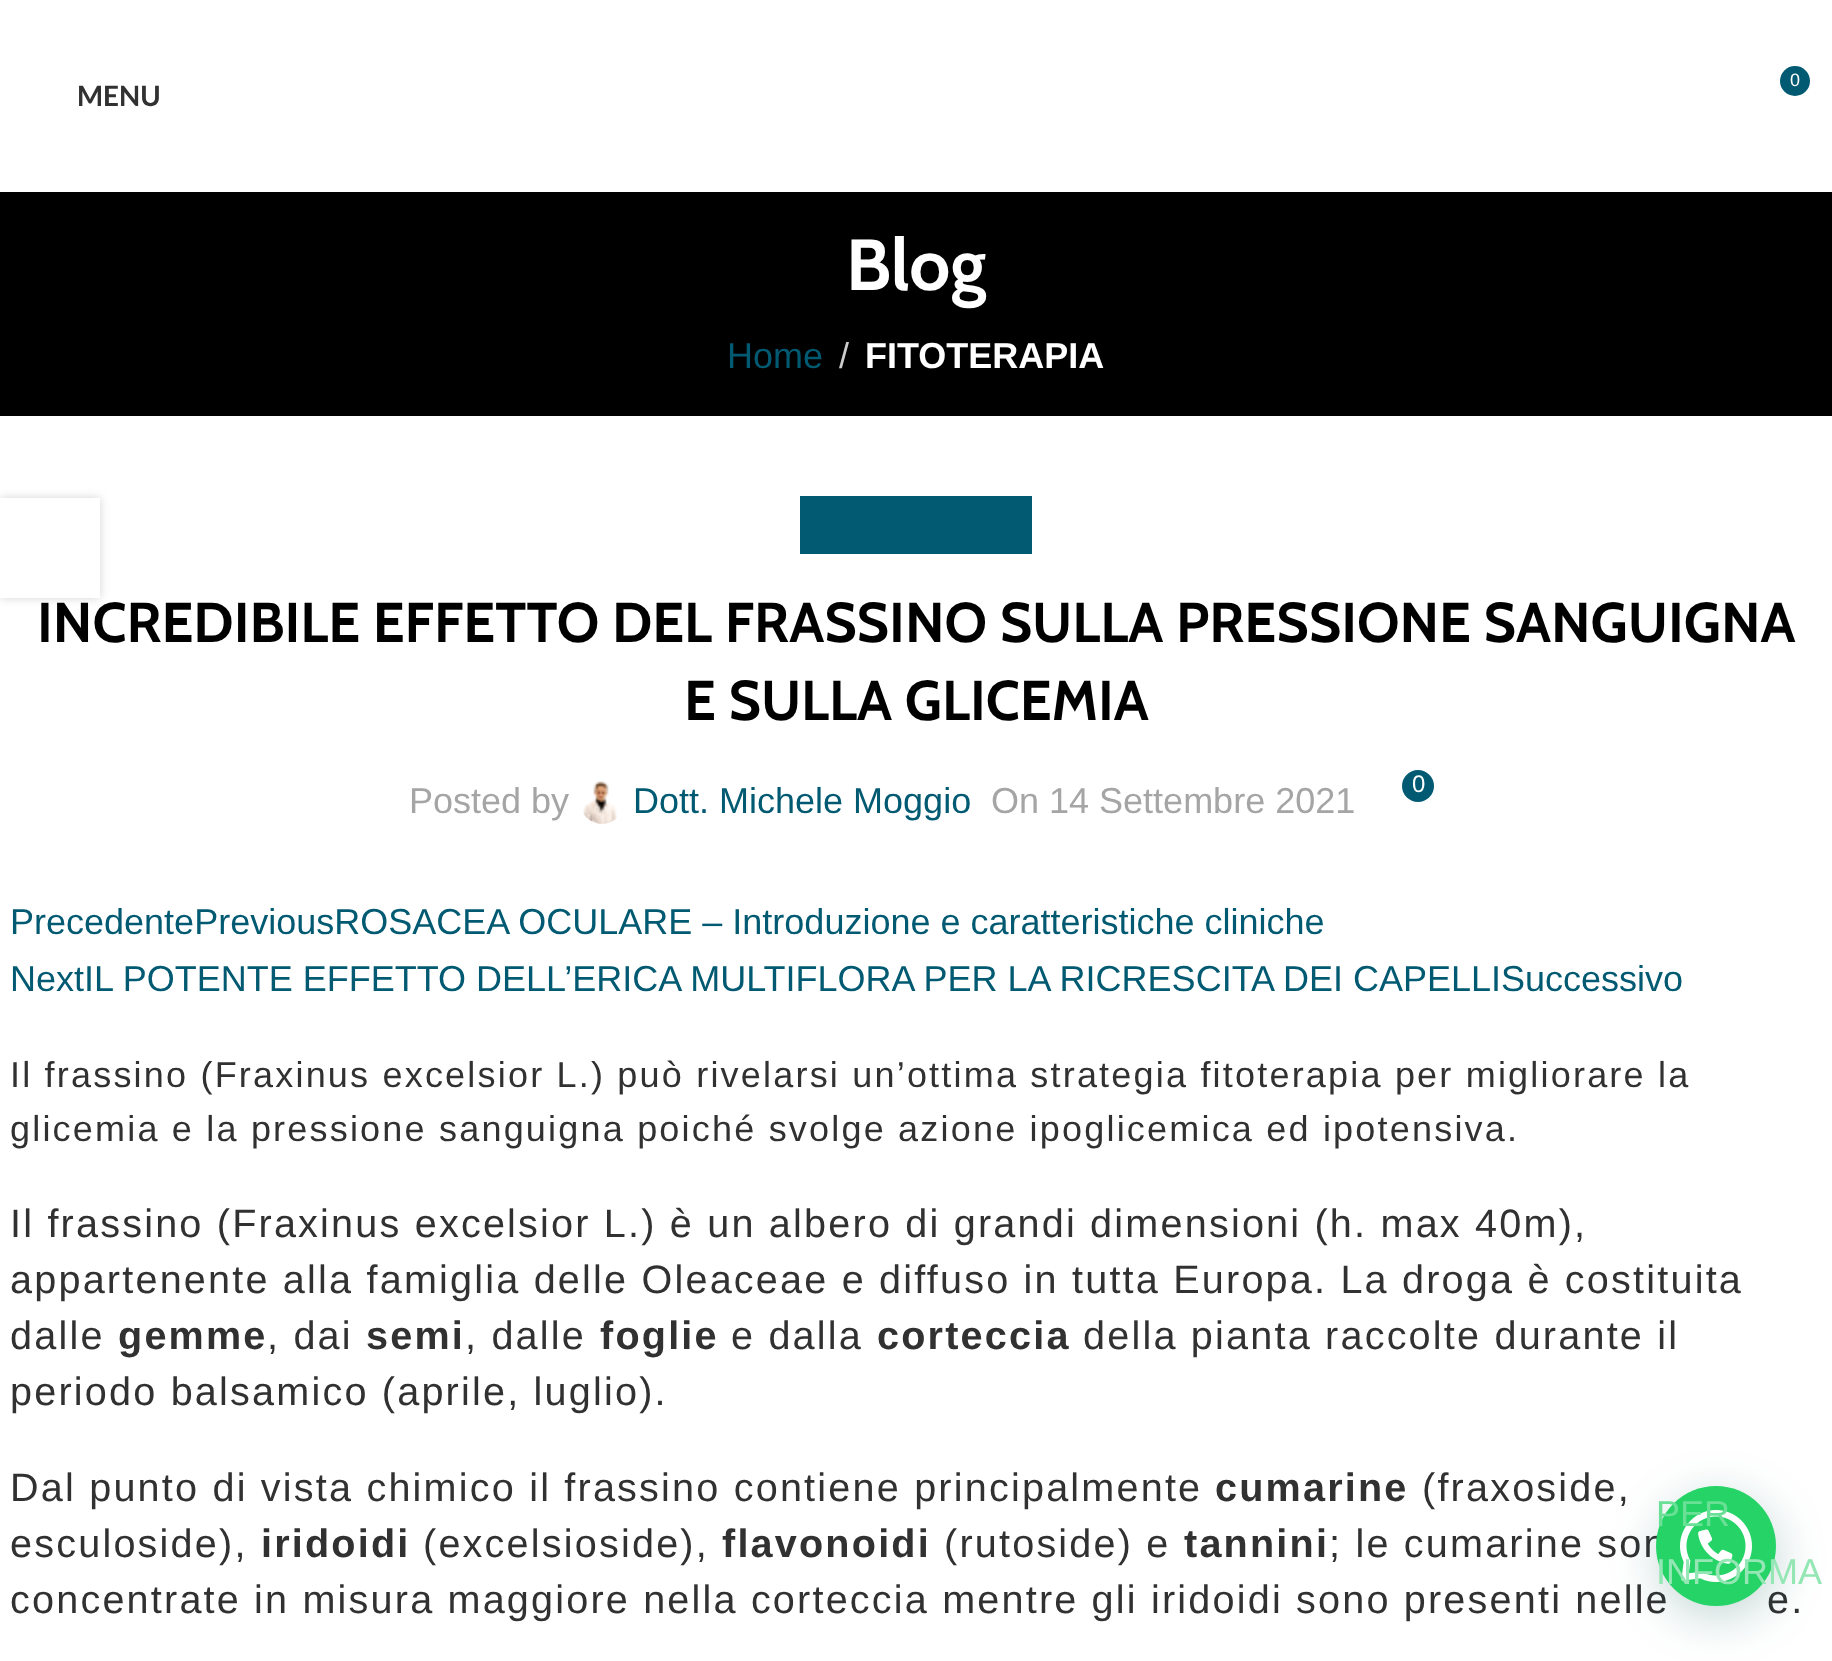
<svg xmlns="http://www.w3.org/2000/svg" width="1832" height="1661">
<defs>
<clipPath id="clip1"><path d="M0 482h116v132h-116zm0 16h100v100h-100z" clip-rule="evenodd"/></clipPath>
</defs>
<rect width="100%" height="100%" fill="#fff"/>
<circle cx="1795" cy="81" r="15" fill="#015a72"/>
<text x="1790" y="86" style="font-family:Liberation Sans;font-size:18px;fill:#fff">0</text>
<text x="77" y="106" style="font-family:Lato;font-size:28px;font-weight:bold;fill:#313131">MENU</text>
<rect y="192" width="1832" height="224" fill="#000"/>
<text x="846" y="290" style="font-family:Cabin;font-size:72px;font-weight:bold;fill:#fff">Blog</text>
<text x="727" y="368" style="font-family:Liberation Sans;font-size:36px;fill:#015a72">Home</text>
<text x="839" y="368" style="font-family:Liberation Sans;font-size:36px;fill:#ccc">/</text>
<text x="865" y="368" style="font-family:Liberation Sans;font-size:36px;font-weight:bold;fill:#fff">FITOTERAPIA</text>
<rect x="800" y="496" width="232" height="58" fill="#015a72"/>
<text x="37" y="642" style="font-family:Cabin;font-size:56px;font-weight:bold;fill:#000">INCREDIBILE EFFETTO DEL FRASSINO SULLA PRESSIONE SANGUIGNA</text>
<text x="684" y="720" style="font-family:Cabin;font-size:56px;font-weight:bold;fill:#000">E SULLA GLICEMIA</text>
<circle cx="1418" cy="786" r="16" fill="#015a72"/>
<text x="1412" y="792" style="font-family:Liberation Sans;font-size:24px;fill:#fff">0</text>
<text x="409" y="813" style="font-family:Liberation Sans;font-size:36px;fill:#a5a5a5">Posted by</text>
<image x="583" y="781" width="35" height="43" href="media/1.png"/>
<text x="633" y="813" style="font-family:Liberation Sans;font-size:36px;fill:#015a72">Dott. Michele Moggio</text>
<text x="991" y="813" style="font-family:Liberation Sans;font-size:36px;fill:#a5a5a5">On 14 Settembre 2021</text>
<text x="10" y="934" style="font-family:Liberation Sans;font-size:36px;fill:#015a72">PrecedentePreviousROSACEA OCULARE – Introduzione e caratteristiche cliniche</text>
<text x="10" y="991" style="font-family:Liberation Sans;font-size:36px;fill:#015a72">NextIL POTENTE EFFETTO DELL’ERICA MULTIFLORA PER LA RICRESCITA DEI CAPELLISuccessivo</text>
<text x="10" y="1087" style="font-family:Liberation Sans;font-size:36px;letter-spacing:2.2px;fill:#313131">Il frassino (Fraxinus excelsior L.) può rivelarsi un’ottima strategia fitoterapia per migliorare la</text>
<text x="10" y="1141" style="font-family:Liberation Sans;font-size:36px;letter-spacing:2.2px;fill:#313131">glicemia e la pressione sanguigna poiché svolge azione ipoglicemica ed ipotensiva.</text>
<text x="10" y="1237" style="font-family:Liberation Sans;font-size:39.6px;letter-spacing:2.2px;fill:#313131">Il frassino (Fraxinus excelsior L.) è un albero di grandi dimensioni (h. max 40m),</text>
<text x="10" y="1293" style="font-family:Liberation Sans;font-size:39.6px;letter-spacing:2.2px;fill:#313131">appartenente alla famiglia delle Oleaceae e diffuso in tutta Europa. La droga è costituita</text>
<text x="10" y="1349" style="font-family:Liberation Sans;font-size:39.6px;letter-spacing:2.2px;fill:#313131">dalle</text>
<text x="118" y="1349" style="font-family:Liberation Sans;font-size:39.6px;font-weight:bold;letter-spacing:2.2px;fill:#313131">gemme</text>
<text x="267" y="1349" style="font-family:Liberation Sans;font-size:39.6px;letter-spacing:2.2px;fill:#313131">, dai</text>
<text x="366" y="1349" style="font-family:Liberation Sans;font-size:39.6px;font-weight:bold;letter-spacing:2.2px;fill:#313131">semi</text>
<text x="465" y="1349" style="font-family:Liberation Sans;font-size:39.6px;letter-spacing:2.2px;fill:#313131">, dalle</text>
<text x="600" y="1349" style="font-family:Liberation Sans;font-size:39.6px;font-weight:bold;letter-spacing:2.2px;fill:#313131">foglie</text>
<text x="731" y="1349" style="font-family:Liberation Sans;font-size:39.6px;letter-spacing:2.2px;fill:#313131">e dalla</text>
<text x="877" y="1349" style="font-family:Liberation Sans;font-size:39.6px;font-weight:bold;letter-spacing:2.2px;fill:#313131">corteccia</text>
<text x="1083" y="1349" style="font-family:Liberation Sans;font-size:39.6px;letter-spacing:2.2px;fill:#313131">della pianta raccolte durante il</text>
<text x="10" y="1405" style="font-family:Liberation Sans;font-size:39.6px;letter-spacing:2.2px;fill:#313131">periodo balsamico (aprile, luglio).</text>
<text x="10" y="1501" style="font-family:Liberation Sans;font-size:39.6px;letter-spacing:2.2px;fill:#313131">Dal punto di vista chimico il frassino contiene principalmente</text>
<text x="1215" y="1501" style="font-family:Liberation Sans;font-size:39.6px;font-weight:bold;letter-spacing:2.2px;fill:#313131">cumarine</text>
<text x="1422" y="1501" style="font-family:Liberation Sans;font-size:39.6px;letter-spacing:2.2px;fill:#313131">(fraxoside,</text>
<text x="10" y="1557" style="font-family:Liberation Sans;font-size:39.6px;letter-spacing:2.2px;fill:#313131">esculoside),</text>
<text x="261" y="1557" style="font-family:Liberation Sans;font-size:39.6px;font-weight:bold;letter-spacing:2.2px;fill:#313131">iridoidi</text>
<text x="423" y="1557" style="font-family:Liberation Sans;font-size:39.6px;letter-spacing:2.2px;fill:#313131">(excelsioside),</text>
<text x="722" y="1557" style="font-family:Liberation Sans;font-size:39.6px;font-weight:bold;letter-spacing:2.2px;fill:#313131">flavonoidi</text>
<text x="944" y="1557" style="font-family:Liberation Sans;font-size:39.6px;letter-spacing:2.2px;fill:#313131">(rutoside) e</text>
<text x="1184" y="1557" style="font-family:Liberation Sans;font-size:39.6px;font-weight:bold;letter-spacing:2.2px;fill:#313131">tannini</text>
<text x="1329" y="1557" style="font-family:Liberation Sans;font-size:39.6px;letter-spacing:2.2px;fill:#313131">; le cumarine son</text>
<text x="10" y="1613" word-spacing="-0.1" style="font-family:Liberation Sans;font-size:39.6px;letter-spacing:2.2px;fill:#313131">concentrate in misura maggiore nella corteccia mentre gli iridoidi sono presenti nelle</text>
<text x="1767" y="1613" word-spacing="-0.1" style="font-family:Liberation Sans;font-size:39.6px;letter-spacing:2.2px;fill:#313131">e.</text>
<g clip-path="url(#clip1)">
<rect y="498" width="100" height="100" fill="#0000002b" filter="blur(5px)"/>
</g>
<rect x="1658" y="1498" width="120" height="120" rx="60" fill="#075e543d" filter="blur(24px)"/>
<circle cx="1716" cy="1546" r="60" fill="#25d366"/>
<image x="1680" y="1510" width="72" height="72" href="media/2.png"/>
<text x="1656" y="1526" style="font-family:Liberation Sans;font-size:36px;fill:#69e096">PER</text>
<text x="1656" y="1584" style="font-family:Liberation Sans;font-size:36px;fill:#94e7b4">INFORMA</text>
</svg>
